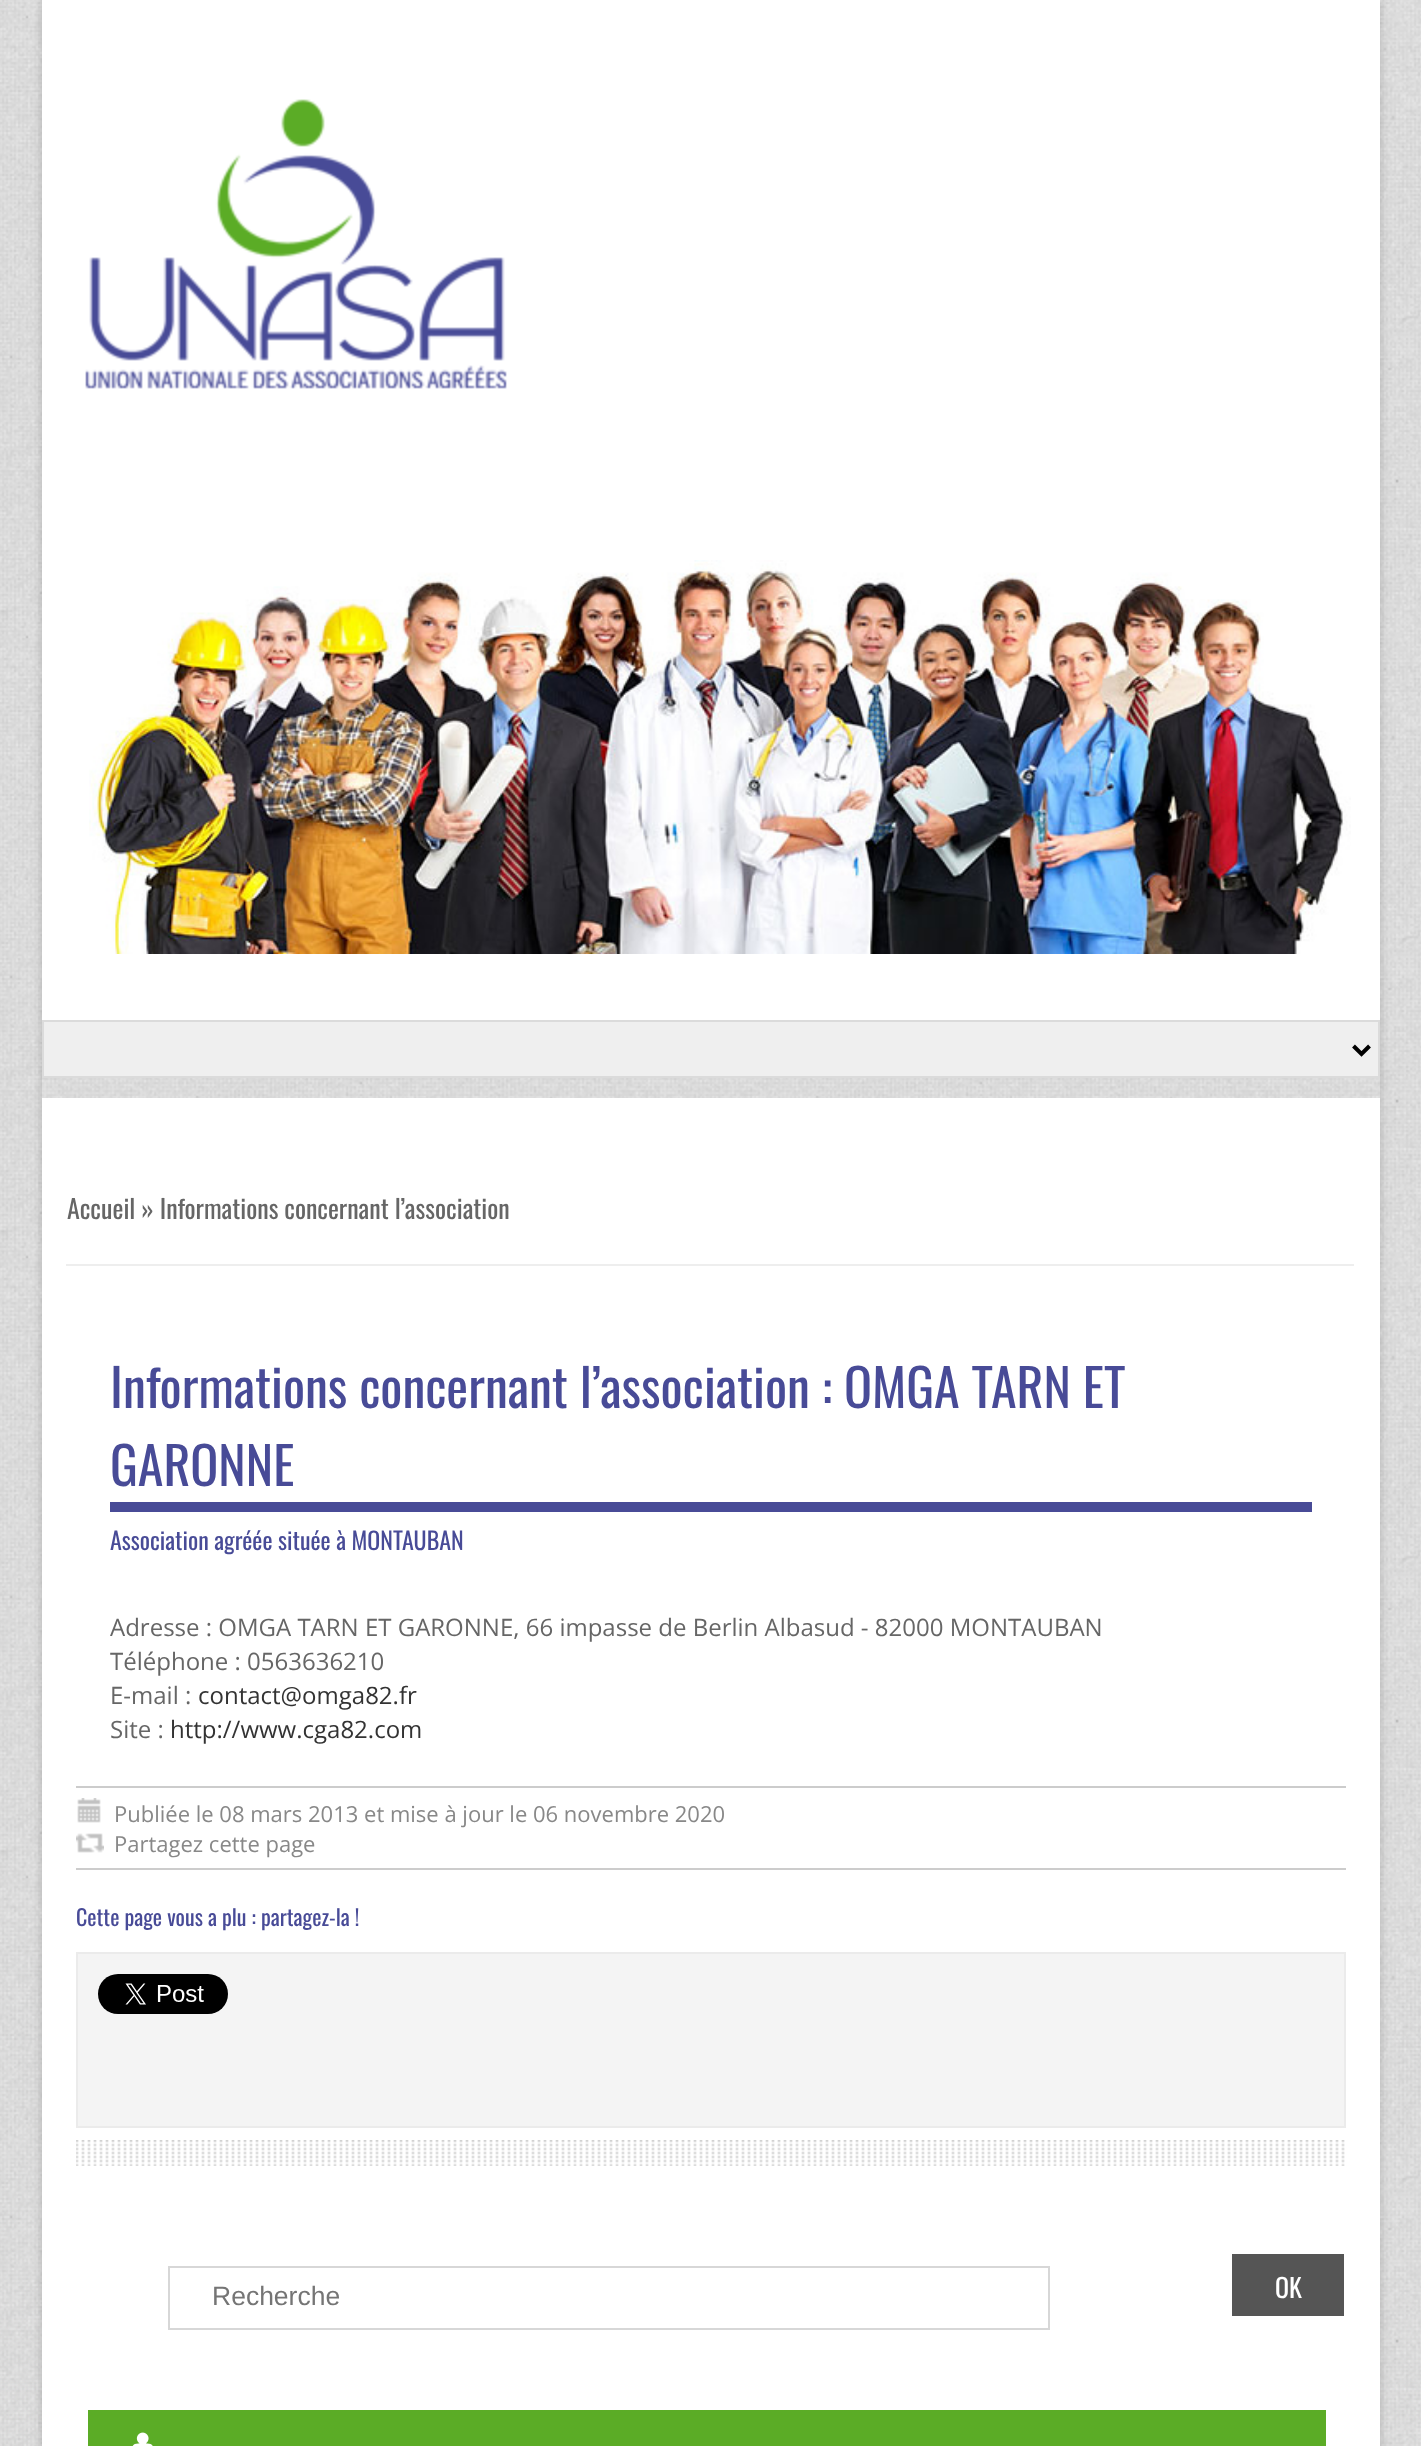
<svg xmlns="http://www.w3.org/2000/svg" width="1421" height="2446">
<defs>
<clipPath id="clip1"><path d="M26 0h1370v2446h-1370zm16 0h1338v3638h-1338z" clip-rule="evenodd"/></clipPath>
</defs>
<rect width="100%" height="100%" fill="#fff"/>
<image x="0" y="0" width="1421" height="2446" href="media/1.png"/>
<g clip-path="url(#clip1)">
<rect x="42" width="1338" height="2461" fill="#00000033" filter="blur(5px)"/>
</g>
<rect x="42" width="1338" height="1020" fill="#fff"/>
<image x="85" y="99" width="422" height="290" href="media/2.png"/>
<image x="89" y="560" width="1262" height="394" href="media/3.png"/>
<rect x="43" y="1021" width="1336" height="56" fill="#efefef" stroke="#dbdbdb" stroke-width="2"/>
<path d="M1353.5 1046l8 8l8-8" fill="none" stroke="#000" stroke-width="4"/>
<rect x="42" y="1098" width="1338" height="1348" fill="#fff"/>
<rect x="66" y="1264" width="1288" height="2" fill="#eee"/>
<text x="67" y="1219" style="font-family:Oswald;font-size:26px;fill:#666">Accueil » Informations concernant l’association</text>
<rect x="110" y="1502" width="1202" height="10" fill="#484b97"/>
<text x="110" y="1408" style="font-family:Oswald;font-size:52px;fill:#484b97">Informations concernant l’association : OMGA TARN ET</text>
<text x="110" y="1486" style="font-family:Oswald;font-size:52px;fill:#484b97">GARONNE</text>
<text x="110" y="1550" style="font-family:Oswald;font-size:24px;fill:#484b97">Association agréée située à MONTAUBAN</text>
<text x="110" y="1636" style="font-family:Open Sans;font-size:24px;fill:#666">Adresse : OMGA TARN ET GARONNE, 66 impasse de Berlin Albasud - 82000 MONTAUBAN</text>
<text x="110" y="1670" style="font-family:Open Sans;font-size:24px;fill:#666">Téléphone : 0563636210</text>
<text x="110" y="1704" style="font-family:Open Sans;font-size:24px;fill:#666">E-mail :</text>
<text x="198" y="1704" style="font-family:Open Sans;font-size:24px;fill:#333">contact@omga82.fr</text>
<text x="110" y="1738" style="font-family:Open Sans;font-size:24px;fill:#666">Site :</text>
<text x="170" y="1738" style="font-family:Open Sans;font-size:24px;fill:#333">http://www.cga82.com</text>
<rect x="76" y="1786" width="1270" height="2" fill="#ccc"/>
<rect x="76" y="1868" width="1270" height="2" fill="#ccc"/>
<image x="77" y="1798" width="24" height="25" href="media/4.png"/>
<text x="114" y="1822" style="font-family:Open Sans;font-size:22px;fill:#888">Publiée le 08 mars 2013 et mise à jour le 06 novembre 2020</text>
<image x="76" y="1833" width="28" height="20" href="media/5.png"/>
<text x="114" y="1852" style="font-family:Open Sans;font-size:22px;fill:#888">Partagez cette page</text>
<text x="76" y="1926" style="font-family:Oswald;font-size:22px;fill:#484b97">Cette page vous a plu : partagez-la !</text>
<rect x="77" y="1953" width="1268" height="174" fill="#f4f4f4" stroke="#ebebeb" stroke-width="2"/>
<image x="98" y="1974" width="130" height="40" href="media/6.png"/>
<image x="76" y="2140" width="1269" height="26" href="media/7.png"/>
<rect x="169" y="2267" width="880" height="62" fill="none" stroke="#d7d7d7" stroke-width="2"/>
<text x="212" y="2305" style="font-family:Liberation Sans;font-size:26.5px;fill:#757575">Recherche</text>
<rect x="1232" y="2254" width="112" height="62" fill="#555"/>
<text x="1275" y="2298" style="font-family:Oswald;font-size:26px;fill:#fff">OK</text>
<rect x="88" y="2410" width="1238" height="36" fill="#5bac26"/>
<image x="132" y="2432" width="21" height="14" href="media/8.png"/>
</svg>
